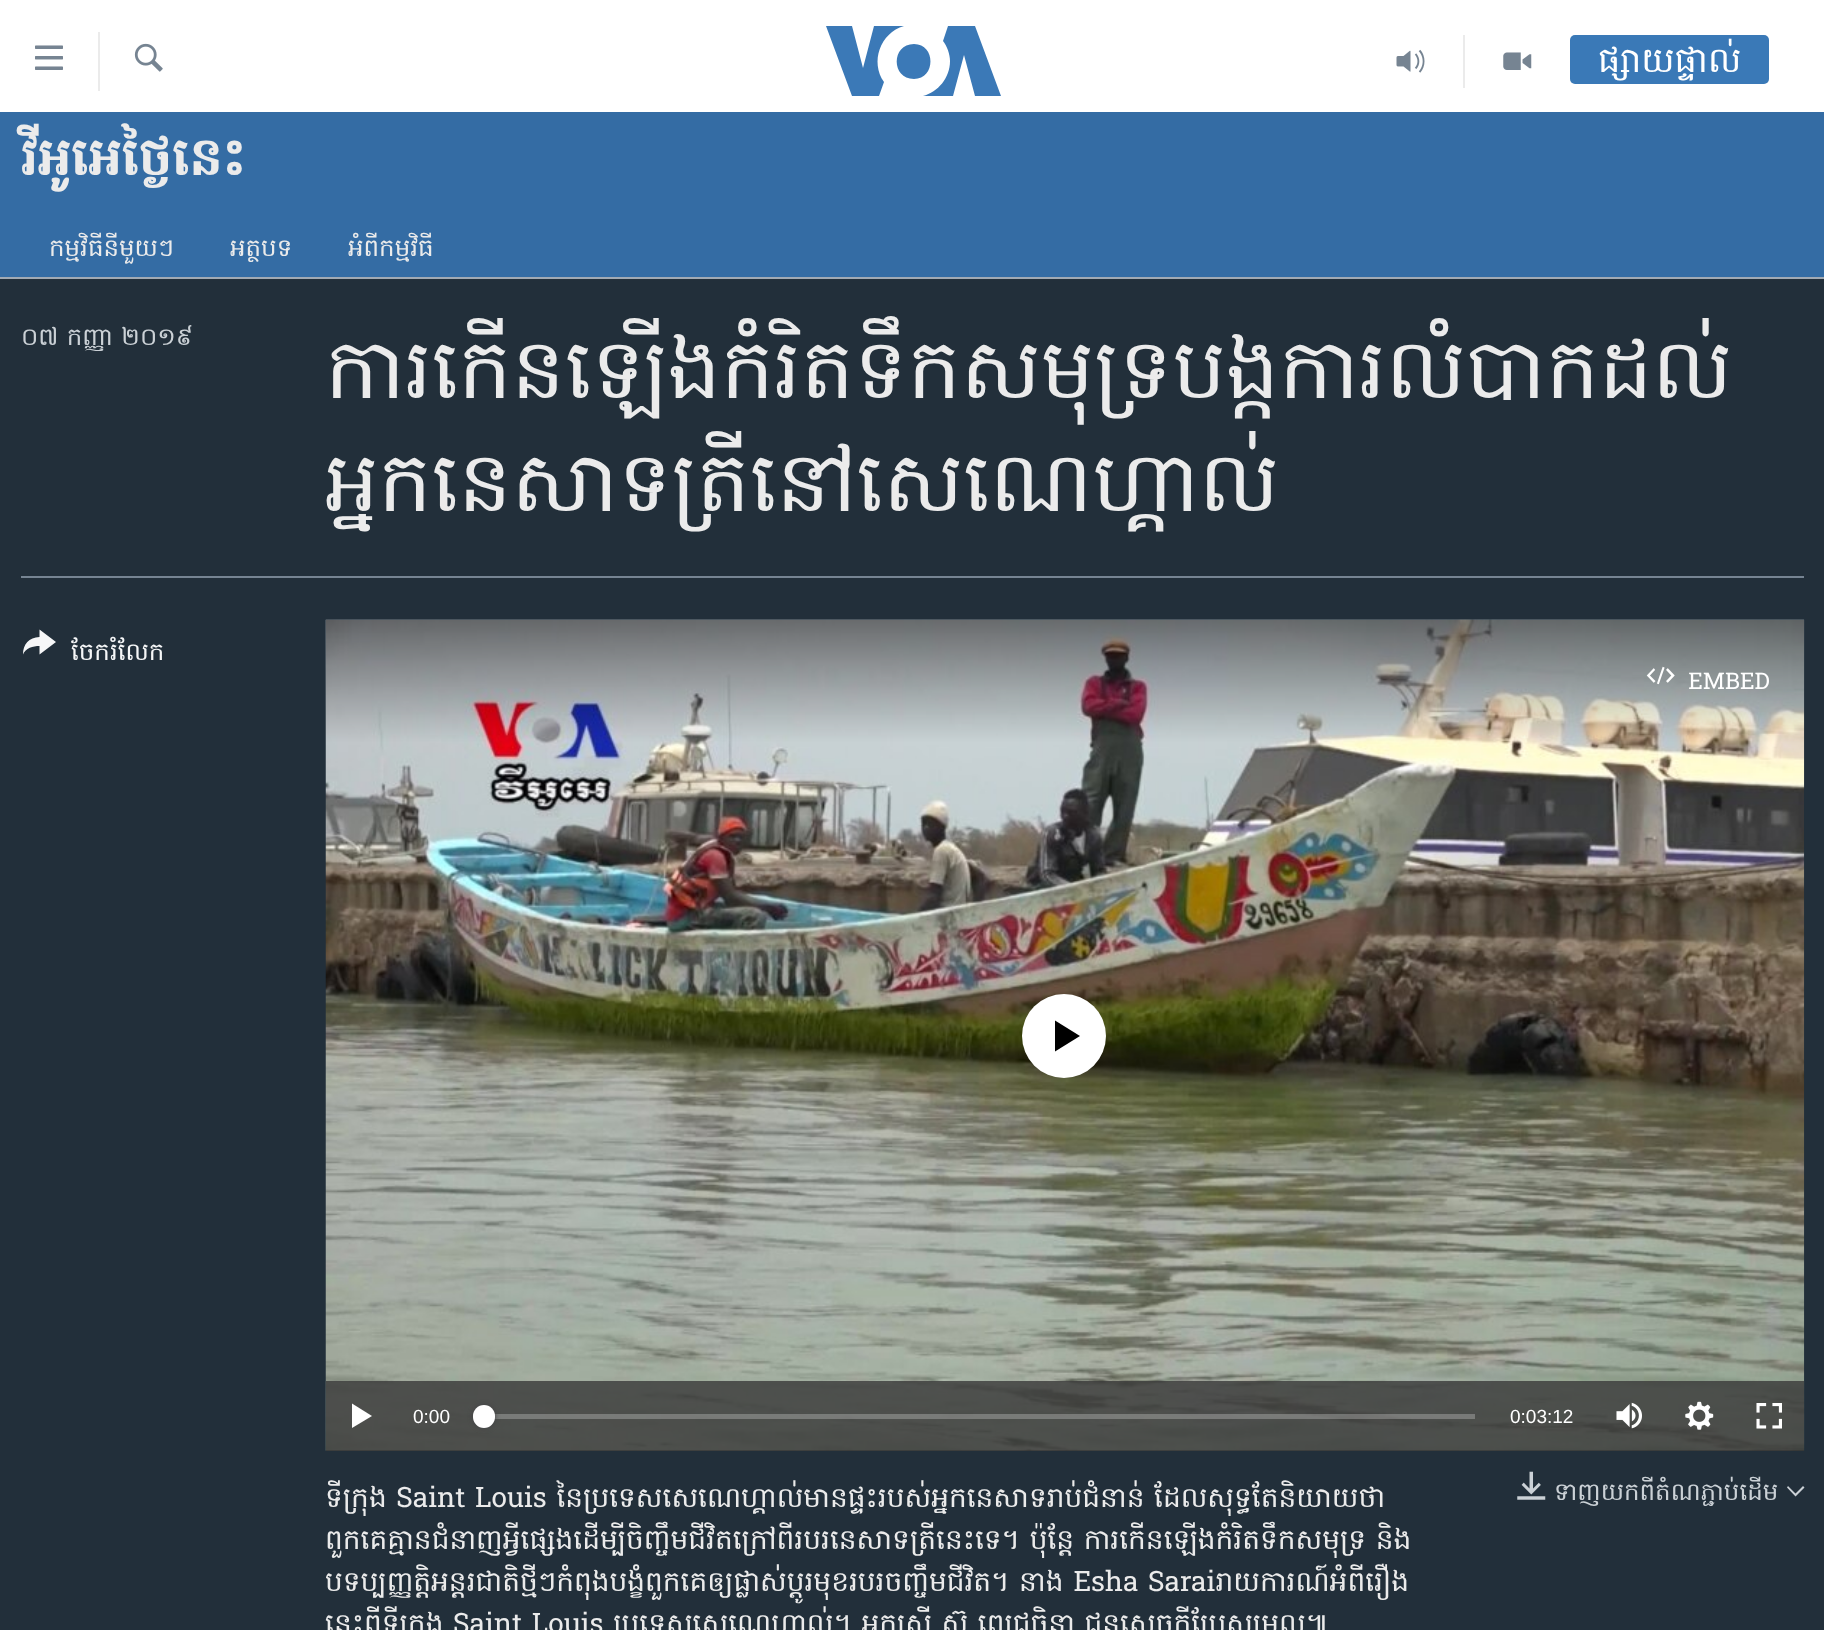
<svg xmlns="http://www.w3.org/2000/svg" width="1824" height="1630">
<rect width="100%" height="100%" fill="#fff"/>
<image x="35" y="45" width="28" height="25" href="media/1.png"/>
<rect x="98" y="32" width="2" height="59" fill="#ebebeb"/>
<image x="134" y="43" width="29" height="29" href="media/2.png"/>
<path d="M884 82l-5 14h-27l-26-70h26l11 42l11-42h30c-24 7-34 36-20 56zm30-38c-23 0-23 35 0 35c22 0 22-35 0-35zm36 17c0 17-12 31-27 35h30l11-41l11 41h26l-26-70h-27l-5 15c4 5 7 13 7 20z" fill="#3b79b7"/>
<rect x="1463" y="35" width="2" height="53" fill="#ebebeb"/>
<image x="1396" y="49" width="29" height="24" href="media/3.png"/>
<image x="1503" y="52" width="29" height="18" href="media/4.png"/>
<rect x="1570" y="35" width="199" height="49" rx="5" fill="#3a79b7"/>
<text x="1598" y="72" style="font-family:Hanuman;font-size:35px;fill:#fff">ផ្សាយផ្ទាល់</text>
<rect y="112" width="1824" height="165" fill="#346ca4"/>
<text x="21" y="175" style="font-family:Hanuman;font-size:53px;font-weight:bold;fill:#ebebeb">វីអូអេថ្ងៃនេះ</text>
<text x="49" y="256" style="font-family:Hanuman;font-size:24.5px;fill:#ebebeb">កម្មវិធីនីមួយៗ</text>
<text x="230" y="256" style="font-family:Hanuman;font-size:24.5px;fill:#ebebeb">អត្ថបទ</text>
<text x="348" y="256" style="font-family:Hanuman;font-size:24.5px;fill:#ebebeb">អំពីកម្មវិធី</text>
<rect y="279" width="1824" height="1351" fill="#222f3a"/>
<rect y="277" width="1824" height="2" fill="#a1aab4"/>
<text x="21" y="345" style="font-family:Hanuman;font-size:24.5px;fill:#cbd1d6">០៧ កញ្ញា ២០១៩</text>
<text x="325" y="398" style="font-family:Hanuman;font-size:84px;fill:#ebebeb">ការកើនឡើងកំរិតទឹកសមុទ្របង្កការលំបាកដល់</text>
<text x="325" y="511" style="font-family:Hanuman;font-size:84px;fill:#ebebeb">អ្នកនេសាទត្រីនៅសេណេហ្គាល់</text>
<rect x="21" y="576" width="1783" height="2" fill="#768492"/>
<path d="M23 654.5c0-10.5 6-17 16.5-17.5v-7.5l16.5 12.5l-16.5 12.5v-8.5c-6.5 0-14 2-16.5 8.5z" fill="#f6f7f8"/>
<text x="71" y="660" style="font-family:Hanuman;font-size:24.5px;fill:#f6f7f8">ចែករំលែក</text>
<rect x="326" y="1450" width="1478" height="1" fill="#000"/>
<image x="325" y="619" width="1480" height="832" href="media/5.png"/>
<image x="1646" y="666" width="29" height="19" href="media/6.png"/>
<text x="1688" y="689" style="font-family:Hanuman;font-size:23px;fill:#fff">EMBED</text>
<circle cx="1064" cy="1036" r="42" fill="#fff"/>
<path d="M1055 1051.5l25-15.5l-25-15.5z" fill="#000"/>
<rect x="326" y="1381" width="1478" height="70" fill="#383838cc"/>
<path d="M352 1428l20-12l-20-12.5z" fill="#fff"/>
<text x="413" y="1423" style="font-family:Liberation Sans;font-size:19px;fill:#fff">0:00</text>
<rect x="494" y="1414" width="981" height="5" fill="#ffffff40"/>
<rect x="473" y="1405" width="22" height="23" rx="11" fill="#414144" filter="blur(2.5px)"/>
<rect x="473" y="1405" width="22" height="23" rx="11" fill="#fff"/>
<text x="1510" y="1423" style="font-family:Liberation Sans;font-size:19px;fill:#fff">0:03:12</text>
<image x="1616" y="1402" width="26" height="27" href="media/7.png"/>
<image x="1685" y="1401" width="29" height="29" href="media/8.png"/>
<image x="1756" y="1403" width="26" height="26" href="media/9.png"/>
<text x="325" y="1507" style="font-family:Hanuman;font-size:28px;fill:#ebebeb">ទីក្រុង Saint Louis នៃប្រទេសសេណេហ្គាល់មានផ្ទះរបស់អ្នកនេសាទរាប់ជំនាន់ ដែលសុទ្ធតែនិយាយថា</text>
<text x="325" y="1549" style="font-family:Hanuman;font-size:28px;fill:#ebebeb">ពួកគេគ្មានជំនាញអ្វីផ្សេងដើម្បីចិញ្ចឹមជីវិតក្រៅពីរបរនេសាទត្រីនេះទេ។ ប៉ុន្តែ ការកើនឡើងកំរិតទឹកសមុទ្រ និង</text>
<text x="325" y="1591" style="font-family:Hanuman;font-size:28px;fill:#ebebeb">បទប្បញ្ញត្តិអន្តរជាតិថ្មីៗកំពុងបង្ខំពួកគេឲ្យផ្លាស់ប្តូរមុខរបរចញ្ចឹមជីវិត។ នាង Esha Saraiរាយការណ៍អំពីរឿង</text>
<text x="325" y="1633" style="font-family:Hanuman;font-size:28px;fill:#ebebeb">នេះពីទីក្រុង Saint Louis ប្រទេសសេណេហ្គាល់។ អ្នកស្រី ស៊ូ ពេជ្រចិន្តា ជូនសេចក្តីប្រែសម្រួល៕</text>
<image x="1517" y="1471" width="29" height="29" href="media/10.png"/>
<text x="1554" y="1500" style="font-family:Hanuman;font-size:24.5px;fill:#cbd1d6">ទាញយកពីតំណភ្ជាប់ដើម</text>
<path d="M1787 1487.5l8.5 9l9-9l-1.5-1.5l-7.5 7.5l-7.5-7.5z" fill="#cbd1d6"/>
</svg>
